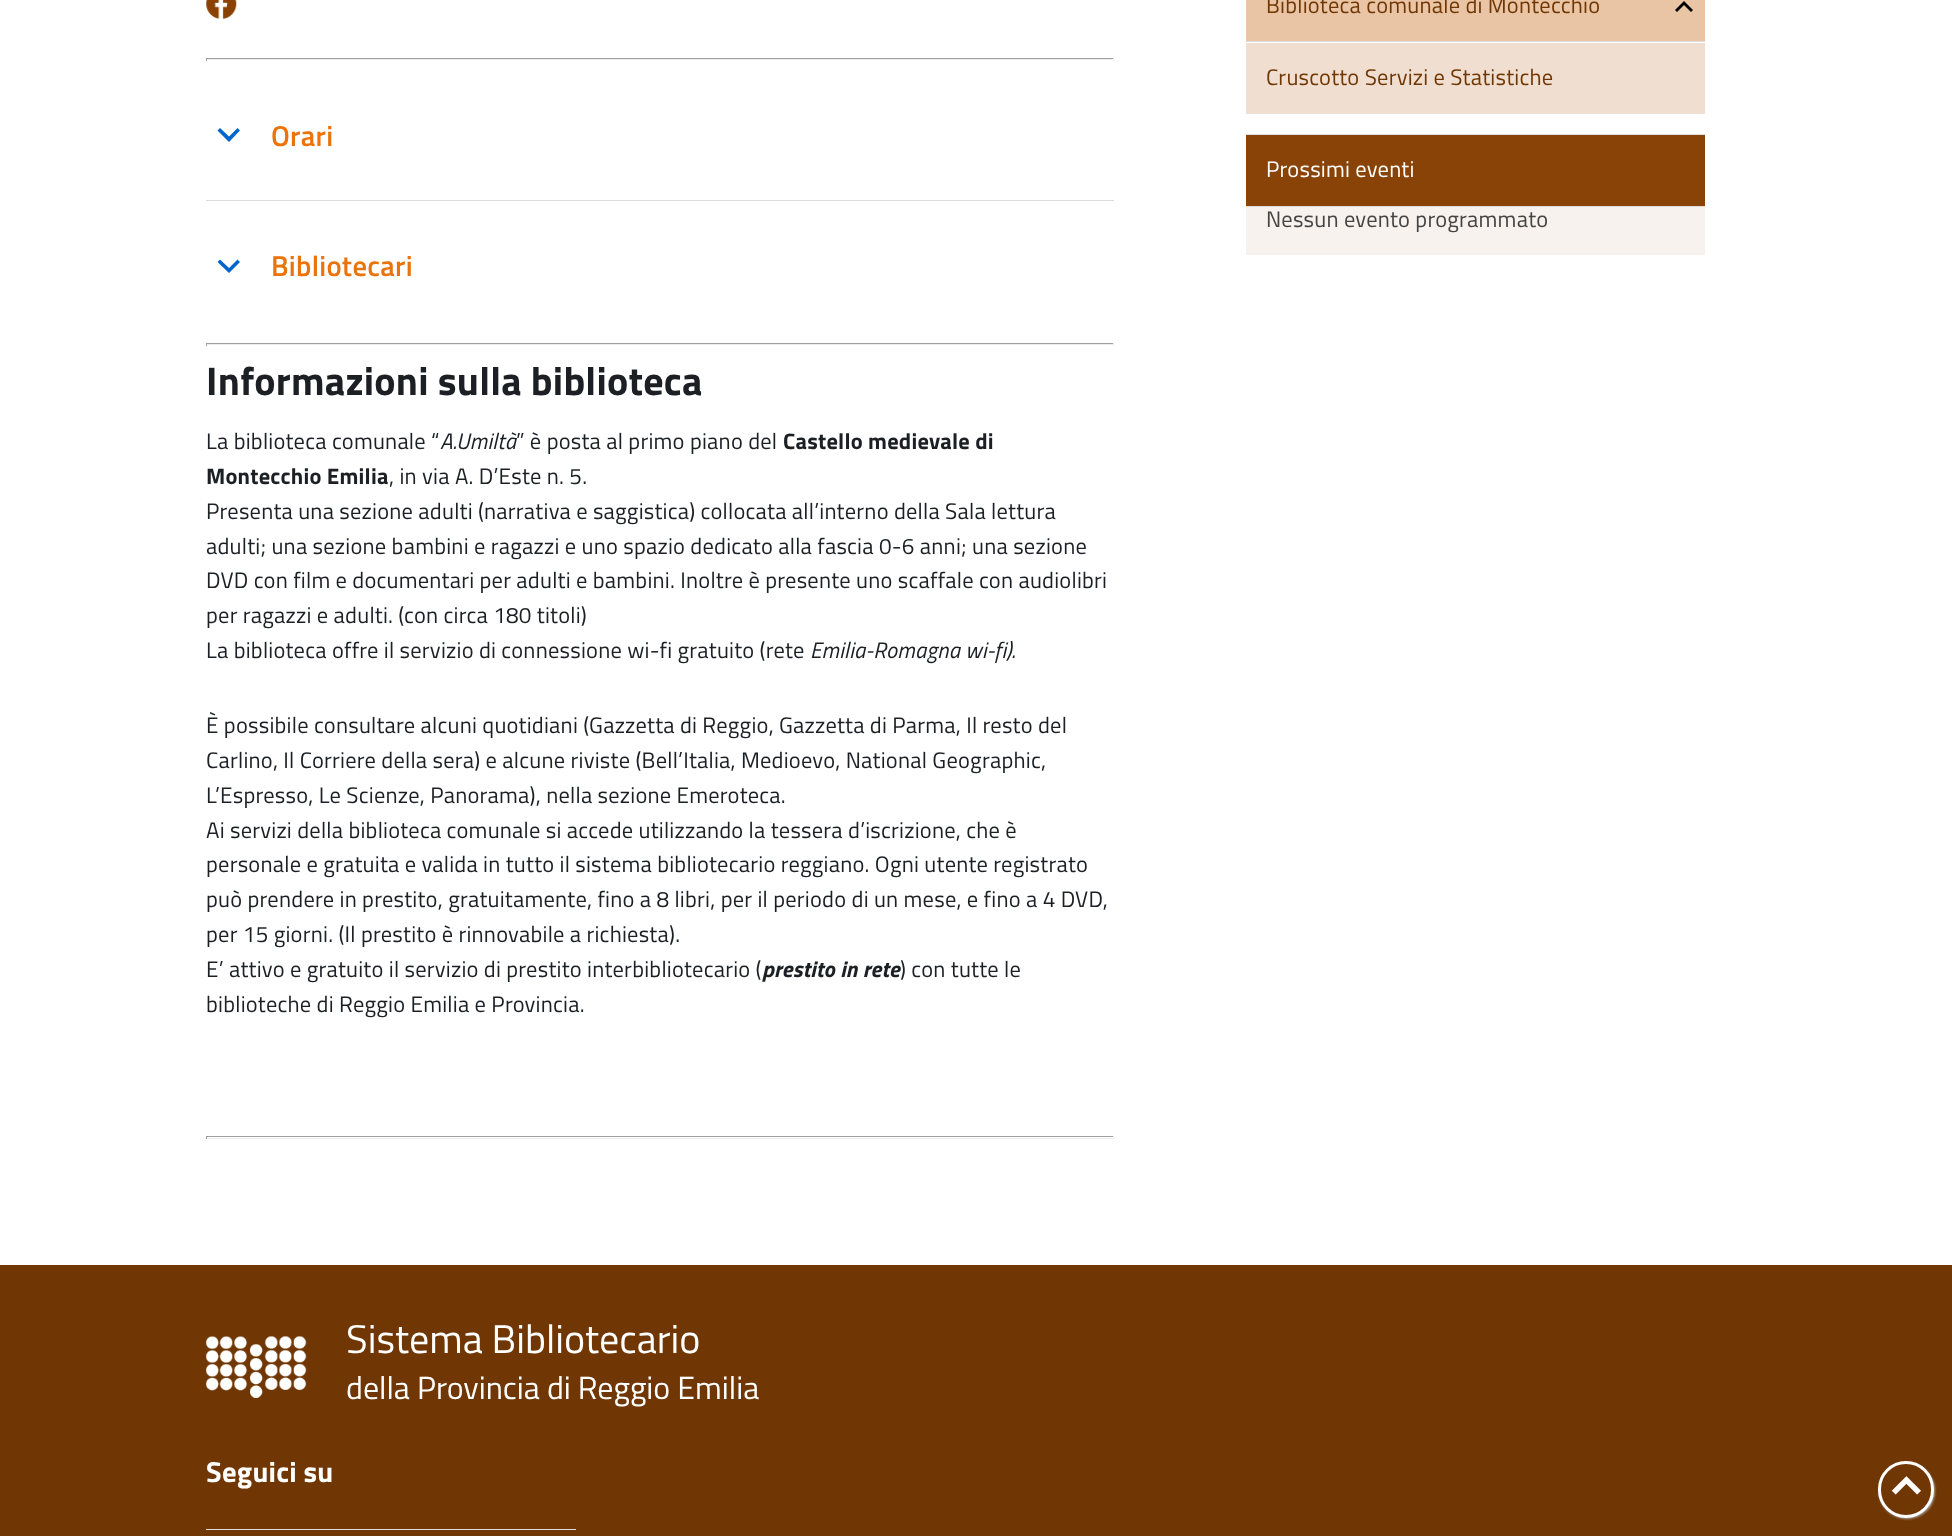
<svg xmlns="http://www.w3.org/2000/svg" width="1952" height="1536">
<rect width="100%" height="100%" fill="#fff"/>
<image x="206" y="0" width="31" height="19" href="media/1.png"/>
<rect x="206" y="58" width="908" height="1" fill="#9f9f9f"/>
<rect x="1113" y="58" width="1" height="3" fill="#eee"/>
<rect x="206" y="59" width="908" height="1" fill="#eee"/>
<rect x="206" y="58" width="1" height="3" fill="#9f9f9f"/>
<path d="M220 128l-2.5 2.5l11.5 11.5l11-11.5l-2.5-2.5l-8.5 8.5z" fill="#06c"/>
<text x="271" y="146" style="font-family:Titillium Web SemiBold;font-size:28.75px;font-weight:600;letter-spacing:0.25px;fill:#ea730b">Orari</text>
<path d="M220 259.5l-2.5 2.5l11.5 11l11-11l-2.5-2.5l-8.5 8.5z" fill="#06c"/>
<rect x="206" y="200" width="908" height="1" fill="#ddd"/>
<text x="271" y="276" style="font-family:Titillium Web SemiBold;font-size:28.75px;font-weight:600;letter-spacing:0.25px;fill:#ea730b">Bibliotecari</text>
<rect x="206" y="343" width="908" height="1" fill="#9f9f9f"/>
<rect x="1113" y="343" width="1" height="3" fill="#eee"/>
<rect x="206" y="344" width="908" height="1" fill="#eee"/>
<rect x="206" y="343" width="1" height="3" fill="#9f9f9f"/>
<text x="206" y="395" style="font-family:Titillium Web;font-size:40px;font-weight:bold;letter-spacing:0.22px;fill:#1c2024">Informazioni sulla biblioteca</text>
<text x="206" y="449" style="font-family:Titillium Web;font-size:22.5px;letter-spacing:0.22px;fill:#1c2024">La biblioteca comunale “</text>
<text x="440" y="449" style="font-family:Titillium Web;font-size:22.5px;font-style:italic;letter-spacing:0.22px;fill:#1c2024">A.Umiltà</text>
<text x="516" y="449" style="font-family:Titillium Web;font-size:22.5px;letter-spacing:0.22px;fill:#1c2024">” è posta al primo piano del</text>
<text x="783" y="449" style="font-family:Titillium Web;font-size:22.5px;font-weight:bold;letter-spacing:0.22px;fill:#1c2024">Castello medievale di</text>
<text x="206" y="484" style="font-family:Titillium Web;font-size:22.5px;font-weight:bold;letter-spacing:0.22px;fill:#1c2024">Montecchio Emilia</text>
<text x="389" y="484" style="font-family:Titillium Web;font-size:22.5px;letter-spacing:0.22px;fill:#1c2024">, in via A. D’Este n. 5.</text>
<text x="206" y="519" style="font-family:Titillium Web;font-size:22.5px;letter-spacing:0.22px;fill:#1c2024">Presenta una sezione adulti (narrativa e saggistica) collocata all’interno della Sala lettura</text>
<text x="206" y="554" style="font-family:Titillium Web;font-size:22.5px;letter-spacing:0.22px;fill:#1c2024">adulti; una sezione bambini e ragazzi e uno spazio dedicato alla fascia 0-6 anni; una sezione</text>
<text x="206" y="588" style="font-family:Titillium Web;font-size:22.5px;letter-spacing:0.22px;fill:#1c2024">DVD con film e documentari per adulti e bambini. Inoltre è presente uno scaffale con audiolibri</text>
<text x="206" y="623" style="font-family:Titillium Web;font-size:22.5px;letter-spacing:0.22px;fill:#1c2024">per ragazzi e adulti. (con circa 180 titoli)</text>
<text x="206" y="658" style="font-family:Titillium Web;font-size:22.5px;letter-spacing:0.22px;fill:#1c2024">La biblioteca offre il servizio di connessione wi-fi gratuito (rete</text>
<text x="810" y="658" style="font-family:Titillium Web;font-size:22.5px;font-style:italic;letter-spacing:0.22px;fill:#1c2024">Emilia-Romagna wi-fi).</text>
<text x="206" y="733" style="font-family:Titillium Web;font-size:22.5px;letter-spacing:0.22px;fill:#1c2024">È possibile consultare alcuni quotidiani (Gazzetta di Reggio, Gazzetta di Parma, Il resto del</text>
<text x="206" y="768" style="font-family:Titillium Web;font-size:22.5px;letter-spacing:0.22px;fill:#1c2024">Carlino, Il Corriere della sera) e alcune riviste (Bell’Italia, Medioevo, National Geographic,</text>
<text x="206" y="803" style="font-family:Titillium Web;font-size:22.5px;letter-spacing:0.22px;fill:#1c2024">L’Espresso, Le Scienze, Panorama), nella sezione Emeroteca.</text>
<text x="206" y="838" style="font-family:Titillium Web;font-size:22.5px;letter-spacing:0.22px;fill:#1c2024">Ai servizi della biblioteca comunale si accede utilizzando la tessera d’iscrizione, che è</text>
<text x="206" y="872" style="font-family:Titillium Web;font-size:22.5px;letter-spacing:0.22px;fill:#1c2024">personale e gratuita e valida in tutto il sistema bibliotecario reggiano. Ogni utente registrato</text>
<text x="206" y="907" style="font-family:Titillium Web;font-size:22.5px;letter-spacing:0.22px;fill:#1c2024">può prendere in prestito, gratuitamente, fino a 8 libri, per il periodo di un mese, e fino a 4 DVD,</text>
<text x="206" y="942" style="font-family:Titillium Web;font-size:22.5px;letter-spacing:0.22px;fill:#1c2024">per 15 giorni. (Il prestito è rinnovabile a richiesta).</text>
<text x="206" y="977" style="font-family:Titillium Web;font-size:22.5px;letter-spacing:0.22px;fill:#1c2024">E’ attivo e gratuito il servizio di prestito interbibliotecario (</text>
<text x="762" y="977" style="font-family:Titillium Web;font-size:22.5px;font-weight:bold;font-style:italic;letter-spacing:0.22px;fill:#1c2024">prestito in rete</text>
<text x="900" y="977" style="font-family:Titillium Web;font-size:22.5px;letter-spacing:0.22px;fill:#1c2024">) con tutte le</text>
<text x="206" y="1012" style="font-family:Titillium Web;font-size:22.5px;letter-spacing:0.22px;fill:#1c2024">biblioteche di Reggio Emilia e Provincia.</text>
<rect x="206" y="1136" width="908" height="1" fill="#9f9f9f"/>
<rect x="1113" y="1136" width="1" height="3" fill="#eee"/>
<rect x="206" y="1138" width="908" height="1" fill="#eee"/>
<rect x="206" y="1136" width="1" height="3" fill="#9f9f9f"/>
<rect x="1246" width="459" height="41" fill="#e9c5a5"/>
<path d="M1691 12l2-2l-9-9l-9 9l2 2l7-7z" fill="#000"/>
<text x="1266" y="13" style="font-family:Titillium Web;font-size:22.5px;letter-spacing:0.22px;fill:#703705">Biblioteca comunale di Montecchio</text>
<rect x="1246" y="41" width="459" height="1" fill="#ddd"/>
<rect x="1246" y="43" width="459" height="71" fill="#f0dfd1"/>
<text x="1266" y="85" style="font-family:Titillium Web;font-size:22.5px;letter-spacing:0.22px;fill:#703705">Cruscotto Servizi e Statistiche</text>
<rect x="1246" y="134" width="459" height="1" fill="#ddd"/>
<rect x="1246" y="135" width="459" height="71" fill="#894306"/>
<text x="1266" y="177" style="font-family:Titillium Web;font-size:22.5px;letter-spacing:0.22px;fill:#fff">Prossimi eventi</text>
<rect x="1246" y="207" width="459" height="48" fill="#f7f2ed"/>
<rect x="1246" y="206" width="459" height="1" fill="#ddd"/>
<text x="1266" y="227" style="font-family:Titillium Web;font-size:22.5px;letter-spacing:0.22px;fill:#444">Nessun evento programmato</text>
<rect y="1265" width="1952" height="271" fill="#703705"/>
<image x="206" y="1336" width="101" height="62" href="media/2.png"/>
<text x="346" y="1353" style="font-family:Titillium Web;font-size:40px;fill:#fff">Sistema Bibliotecario</text>
<text x="346" y="1399" style="font-family:Titillium Web;font-size:32px;fill:#fff">della Provincia di Reggio Emilia</text>
<text x="206" y="1482" style="font-family:Titillium Web;font-size:28.75px;font-weight:bold;letter-spacing:0.25px;fill:#fff">Seguici su</text>
<rect x="206" y="1529" width="370" height="1" fill="#ddd"/>
<rect x="1879" y="1463" width="56" height="56" rx="28" fill="#aaa" filter="blur(1px)"/>
<rect x="1879.5" y="1462.5" width="53" height="54" rx="26.5" fill="#703705" stroke="#fff" stroke-width="3"/>
<text x="1892" y="1498" style="font-family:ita;font-size:28px;font-weight:bold;fill:#fff">⏷</text>
</svg>
